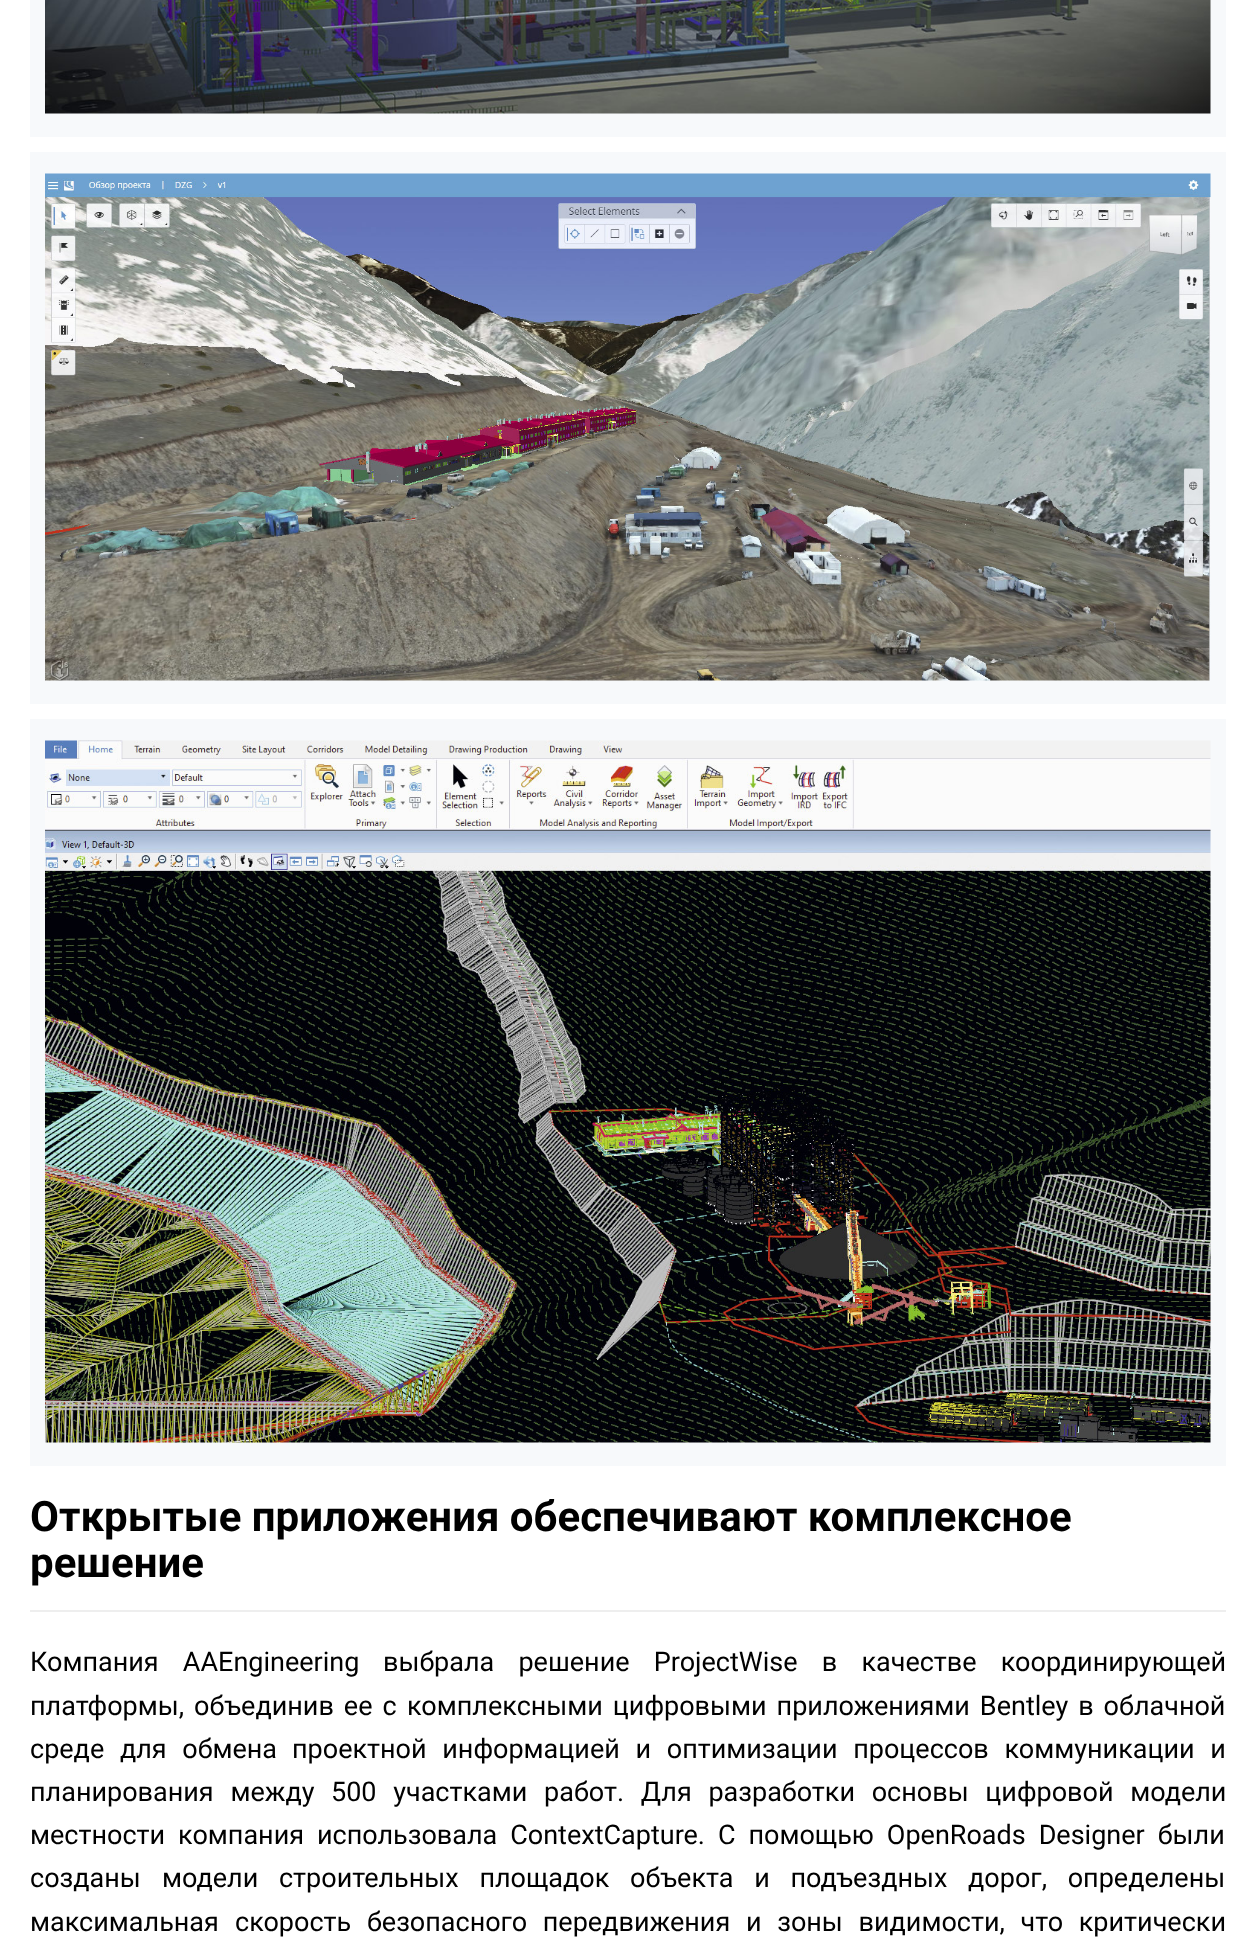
<svg xmlns="http://www.w3.org/2000/svg" width="1255" height="1943">
<rect width="100%" height="100%" fill="#fff"/>
<rect x="30" width="1196" height="137" fill="#f7f9fb"/>
<image x="45" y="0" width="1166" height="114" href="media/1.png"/>
<rect x="30" y="152" width="1196" height="552" fill="#f7f9fb"/>
<image x="45" y="173" width="1166" height="508" href="media/2.png"/>
<rect x="30" y="719" width="1196" height="747" fill="#f7f9fb"/>
<image x="45" y="740" width="1166" height="703" href="media/3.png"/>
<rect x="30" y="1610" width="1196" height="2" fill="#eee"/>
<text x="30" y="1531" style="font-family:Roboto;font-size:42px;font-weight:bold;fill:#000">Открытые приложения обеспечивают комплексное</text>
<text x="30" y="1577" style="font-family:Roboto;font-size:42px;font-weight:bold;fill:#000">решение</text>
<text x="30" y="1671" word-spacing="17.5" style="font-family:Roboto;font-size:27px;fill:#000">Компания AAEngineering</text>
<text x="383" y="1671" word-spacing="17.5" style="font-family:Roboto;font-size:27px;fill:#000">выбрала решение ProjectWise в качестве координирующей</text>
<text x="30" y="1715" word-spacing="3.25" style="font-family:Roboto;font-size:27px;fill:#000">платформы, объединив ее с</text>
<text x="407" y="1715" word-spacing="3.25" style="font-family:Roboto;font-size:27px;fill:#000">комплексными цифровыми приложениями Bentley в облачной</text>
<text x="30" y="1758" word-spacing="9" style="font-family:Roboto;font-size:27px;fill:#000">среде для обмена</text>
<text x="292" y="1758" word-spacing="9" style="font-family:Roboto;font-size:27px;fill:#000">проектной информацией и оптимизации процессов коммуникации и</text>
<text x="30" y="1801" word-spacing="10" style="font-family:Roboto;font-size:27px;fill:#000">планирования между</text>
<text x="331" y="1801" word-spacing="10" style="font-family:Roboto;font-size:27px;fill:#000">500 участками работ. Для разработки основы цифровой модели</text>
<text x="30" y="1844" word-spacing="6.25" style="font-family:Roboto;font-size:27px;fill:#000">местности компания</text>
<text x="317" y="1844" word-spacing="6.25" style="font-family:Roboto;font-size:27px;fill:#000">использовала ContextCapture. С помощью OpenRoads Designer были</text>
<text x="30" y="1887" style="font-family:Roboto;font-size:27px;fill:#000">созданы</text>
<text x="162" y="1887" word-spacing="14" style="font-family:Roboto;font-size:27px;fill:#000">модели строительных площадок объекта и подъездных дорог, определены</text>
<text x="30" y="1931" style="font-family:Roboto;font-size:27px;fill:#000">максимальная</text>
<text x="235" y="1931" word-spacing="9" style="font-family:Roboto;font-size:27px;fill:#000">скорость безопасного передвижения и зоны видимости, что критически</text>
</svg>
